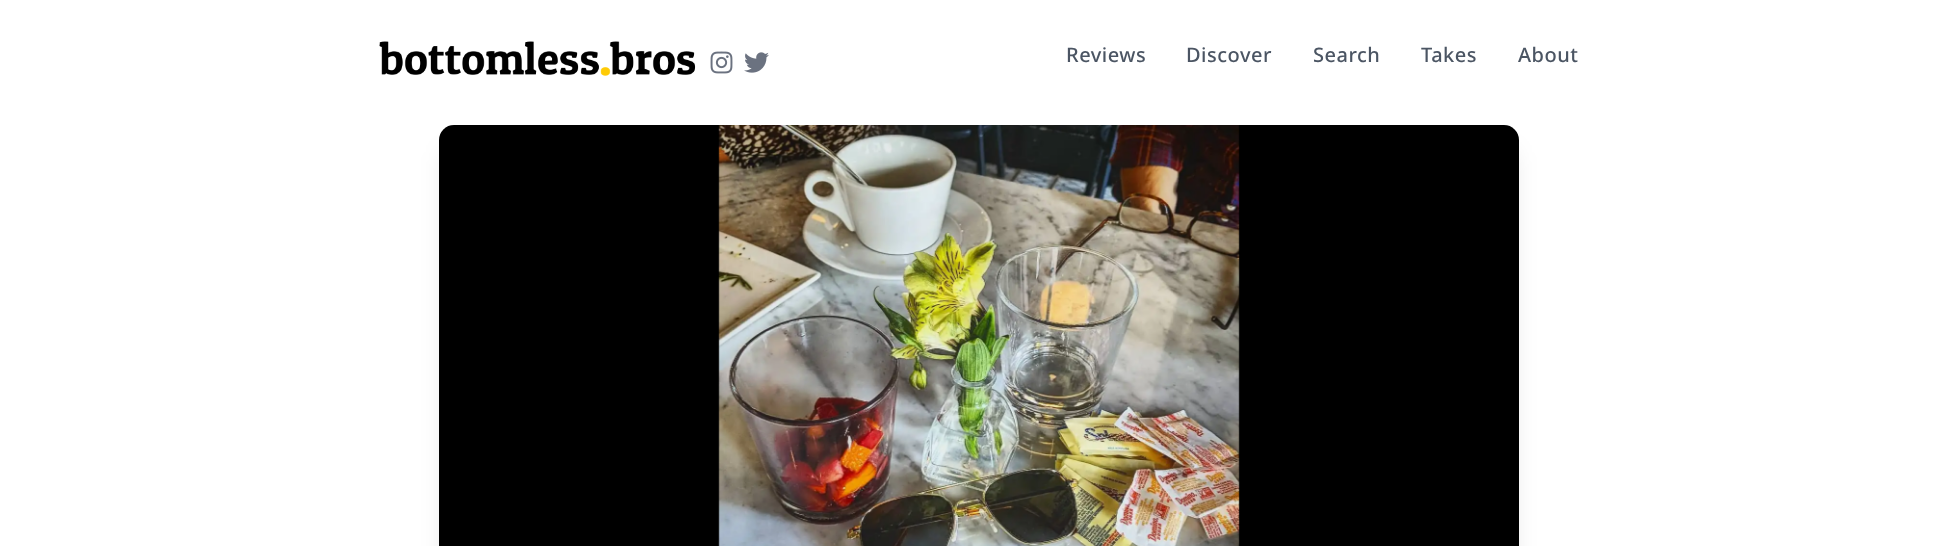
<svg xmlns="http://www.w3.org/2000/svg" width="1957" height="546">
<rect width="100%" height="100%" fill="#fff"/>
<image x="379" y="41" width="317" height="35" href="media/1.png"/>
<image x="710" y="51" width="23" height="23" href="media/2.png"/>
<image x="744" y="52" width="25" height="21" href="media/3.png"/>
<text x="1066" y="62" style="font-family:Noto Sans;font-size:20px;font-weight:500;letter-spacing:0.5px;fill:#4b5563">Reviews</text>
<text x="1186" y="62" style="font-family:Noto Sans;font-size:20px;font-weight:500;letter-spacing:0.5px;fill:#4b5563">Discover</text>
<text x="1313" y="62" style="font-family:Noto Sans;font-size:20px;font-weight:500;letter-spacing:0.5px;fill:#4b5563">Search</text>
<text x="1421" y="62" style="font-family:Noto Sans;font-size:20px;font-weight:500;letter-spacing:0.5px;fill:#4b5563">Takes</text>
<text x="1518" y="62" style="font-family:Noto Sans;font-size:20px;font-weight:500;letter-spacing:0.5px;fill:#4b5563">About</text>
<rect x="444" y="150" width="1070" height="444" rx="10" fill="#0000001a" filter="blur(12.5px)"/>
<rect x="439" y="125" width="1080" height="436" rx="15" fill="#000"/>
<image x="718" y="125" width="522" height="421" href="media/4.png"/>
</svg>
